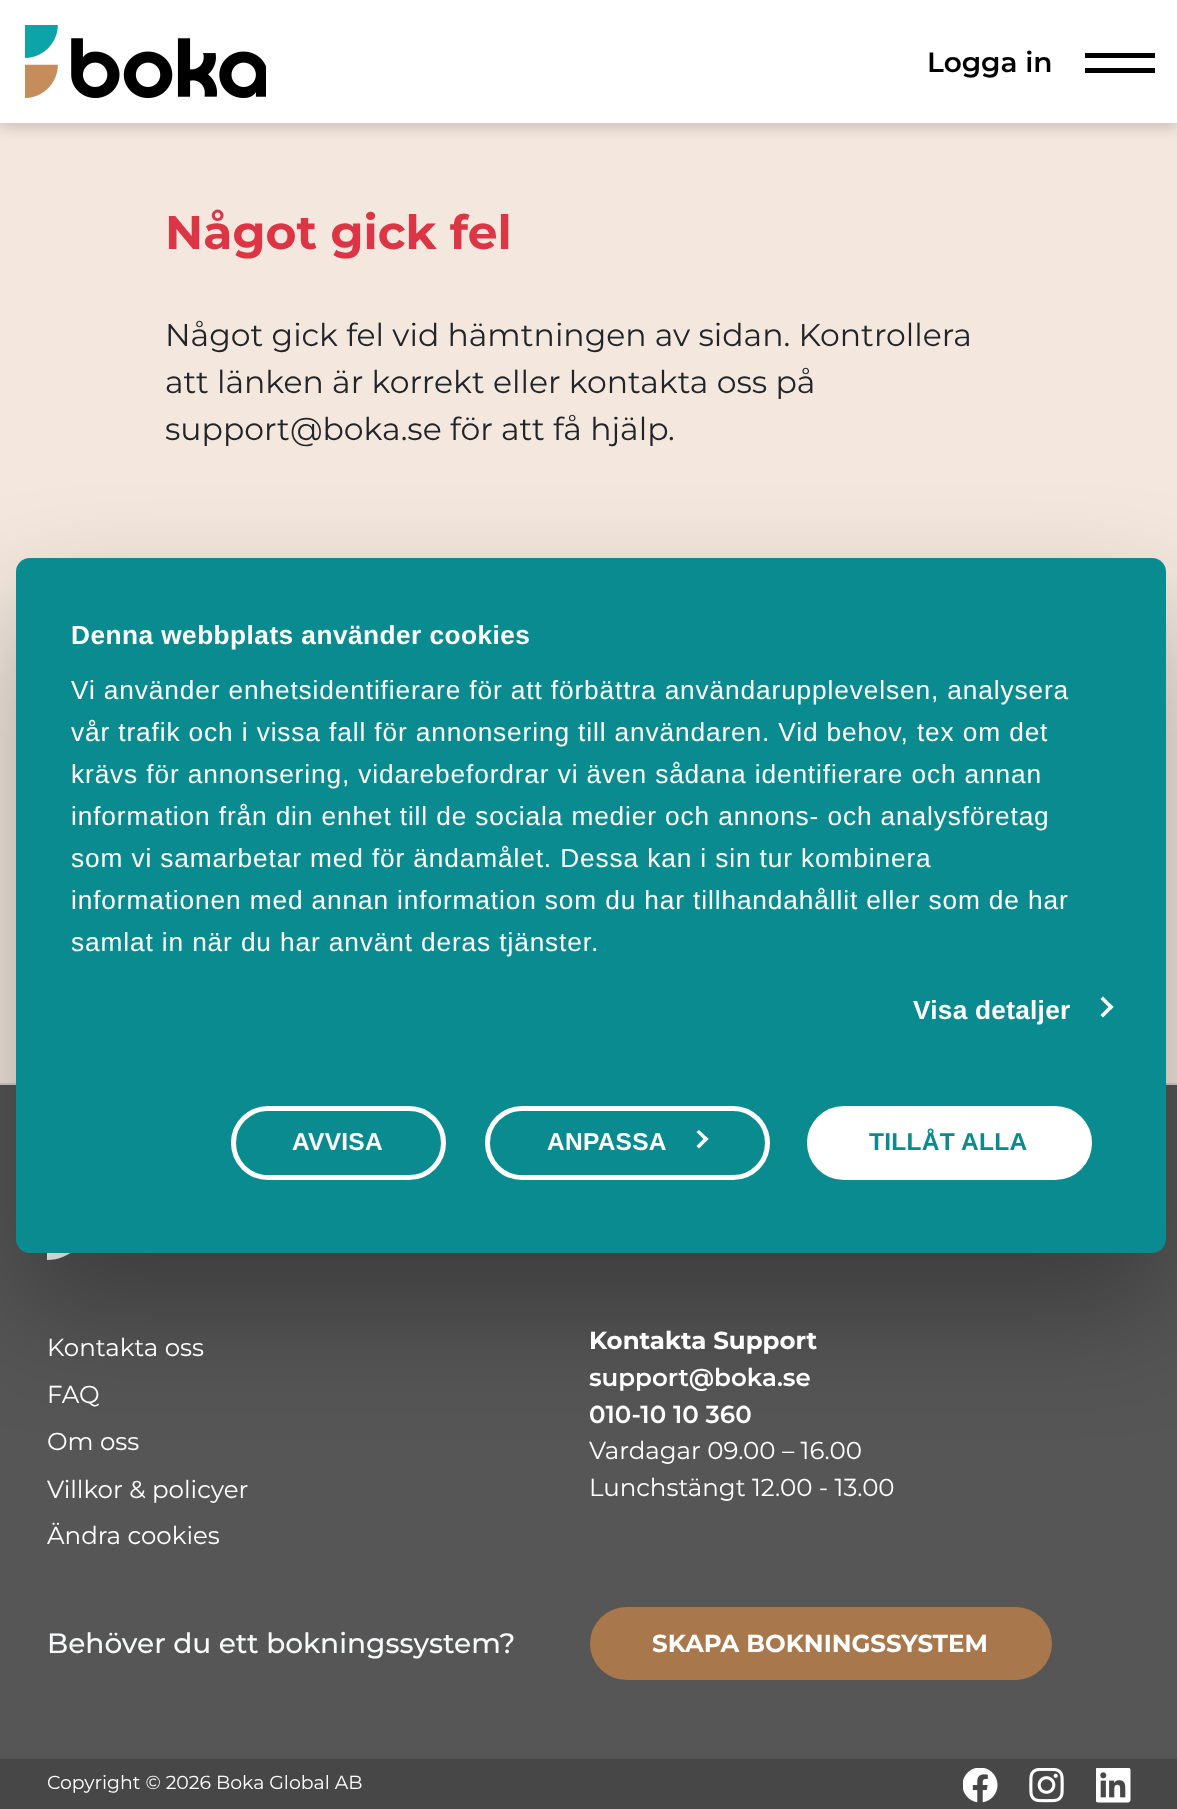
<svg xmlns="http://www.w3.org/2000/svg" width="1177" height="1809">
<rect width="100%" height="100%" fill="#f4e8de"/>
<rect y="5" width="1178" height="123" fill="#00000029" filter="blur(6.5px)"/>
<rect width="1177" height="123" fill="#fff"/>
<image x="25" y="25" width="241" height="73" href="media/1.png"/>
<text x="927" y="72" style="font-family:Montserrat;font-size:28px;font-weight:600;fill:#000">Logga in</text>
<rect x="1085" y="53" width="70" height="5" fill="#000"/>
<rect x="1085" y="68" width="70" height="5" fill="#000"/>
<text x="165" y="249" style="font-family:Montserrat;font-size:47.25px;font-weight:bold;fill:#dc3545">Något gick fel</text>
<text x="165" y="346" style="font-family:Montserrat;font-size:31.5px;fill:#212529">Något gick fel vid hämtningen av sidan. Kontrollera</text>
<text x="165" y="393" style="font-family:Montserrat;font-size:31.5px;fill:#212529">att länken är korrekt eller kontakta oss på</text>
<text x="165" y="440" style="font-family:Montserrat;font-size:31.5px;fill:#212529">support@boka.se för att få hjälp.</text>
<rect y="1083" width="1177" height="2" fill="#d2d2d2"/>
<rect y="1085" width="1177" height="674" fill="#565656"/>
<path d="M47 1260c23 0 42-18 42-41h-42z" fill="#fff"/>
<rect x="16" y="614" width="1150" height="695" rx="14" fill="#0000004d" filter="blur(59.5px)"/>
<rect x="16" y="558" width="1150" height="695" rx="14" fill="#0a8b90"/>
<text x="71" y="644" style="font-family:Liberation Sans;font-size:26.25px;font-weight:bold;letter-spacing:0.45px;fill:#fff">Denna webbplats använder cookies</text>
<text x="71" y="699" style="font-family:Liberation Sans;font-size:26.25px;letter-spacing:0.88px;fill:#fff">Vi använder enhetsidentifierare för att förbättra användarupplevelsen, analysera</text>
<text x="71" y="741" style="font-family:Liberation Sans;font-size:26.25px;letter-spacing:0.88px;fill:#fff">vår trafik och i vissa fall för annonsering till användaren. Vid behov, tex om det</text>
<text x="71" y="783" style="font-family:Liberation Sans;font-size:26.25px;letter-spacing:0.88px;fill:#fff">krävs för annonsering, vidarebefordrar vi även sådana identifierare och annan</text>
<text x="71" y="825" style="font-family:Liberation Sans;font-size:26.25px;letter-spacing:0.88px;fill:#fff">information från din enhet till de sociala medier och annons- och analysföretag</text>
<text x="71" y="867" style="font-family:Liberation Sans;font-size:26.25px;letter-spacing:0.88px;fill:#fff">som vi samarbetar med för ändamålet. Dessa kan i sin tur kombinera</text>
<text x="71" y="909" style="font-family:Liberation Sans;font-size:26.25px;letter-spacing:0.88px;fill:#fff">informationen med annan information som du har tillhandahållit eller som de har</text>
<text x="71" y="951" style="font-family:Liberation Sans;font-size:26.25px;letter-spacing:0.88px;fill:#fff">samlat in när du har använt deras tjänster.</text>
<text x="913" y="1019" style="font-family:Liberation Sans;font-size:26.25px;font-weight:bold;letter-spacing:0.25px;fill:#fff">Visa detaljer</text>
<path d="M1103 996.5l10.5 10.5l-2.5 2.5l-10.5-10.5z" fill="#fff"/>
<path d="M1111 1004.5l2.5 2.5l-10.5 10.5l-2.5-2.5z" fill="#fff"/>
<rect x="233.5" y="1108.5" width="210" height="69" rx="34.5" fill="none" stroke="#fff" stroke-width="5"/>
<text x="292" y="1150" style="font-family:Liberation Sans;font-size:24.5px;font-weight:bold;letter-spacing:0.25px;fill:#fff">AVVISA</text>
<rect x="487.5" y="1108.5" width="280" height="69" rx="34.5" fill="none" stroke="#fff" stroke-width="5"/>
<text x="547" y="1150" style="font-family:Liberation Sans;font-size:24.5px;font-weight:bold;letter-spacing:0.25px;fill:#fff">ANPASSA</text>
<path d="M699 1130l9.5 9l-2.5 2.5l-9.5-9.5z" fill="#fff"/>
<path d="M706 1136.5l2.5 2.5l-9.5 9.5l-2.5-2.5z" fill="#fff"/>
<rect x="809.5" y="1108.5" width="280" height="69" rx="34.5" fill="#fff" stroke="#fff" stroke-width="5"/>
<text x="869" y="1150" style="font-family:Liberation Sans;font-size:24.5px;font-weight:bold;letter-spacing:0.25px;fill:#0a8b90">TILLÅT ALLA</text>
<text x="47" y="1356" style="font-family:Montserrat;font-size:24.5px;fill:#fff">Kontakta oss</text>
<text x="47" y="1403" style="font-family:Montserrat;font-size:24.5px;fill:#fff">FAQ</text>
<text x="47" y="1450" style="font-family:Montserrat;font-size:24.5px;fill:#fff">Om oss</text>
<text x="47" y="1498" style="font-family:Montserrat;font-size:24.5px;fill:#fff">Villkor &amp; policyer</text>
<text x="47" y="1544" style="font-family:Montserrat;font-size:24.5px;fill:#fff">Ändra cookies</text>
<text x="589" y="1349" style="font-family:Montserrat;font-size:24.5px;font-weight:bold;fill:#fff">Kontakta Support</text>
<text x="589" y="1386" style="font-family:Montserrat;font-size:24.5px;font-weight:600;fill:#fff">support@boka.se</text>
<text x="589" y="1423" style="font-family:Montserrat;font-size:24.5px;font-weight:600;fill:#fff">010-10 10 360</text>
<text x="589" y="1459" style="font-family:Montserrat;font-size:24.5px;fill:#fff">Vardagar 09.00 – 16.00</text>
<text x="589" y="1496" style="font-family:Montserrat;font-size:24.5px;fill:#fff">Lunchstängt 12.00 - 13.00</text>
<text x="47" y="1653" style="font-family:Montserrat;font-size:28px;font-weight:500;fill:#f8f9fa">Behöver du ett bokningssystem?</text>
<rect x="590" y="1607" width="462" height="73" rx="36.5" fill="#a8784c"/>
<text x="652" y="1652" style="font-family:Montserrat;font-size:24.5px;font-weight:bold;fill:#fff">SKAPA BOKNINGSSYSTEM</text>
<rect y="1759" width="1177" height="50" fill="#474747"/>
<text x="47" y="1789" style="font-family:Montserrat;font-size:18.9px;fill:#fff">Copyright © 2026 Boka Global AB</text>
<image x="963" y="1768" width="35" height="35" href="media/2.png"/>
<image x="1029" y="1768" width="35" height="35" href="media/3.png"/>
<image x="1096" y="1768" width="35" height="35" href="media/4.png"/>
</svg>
